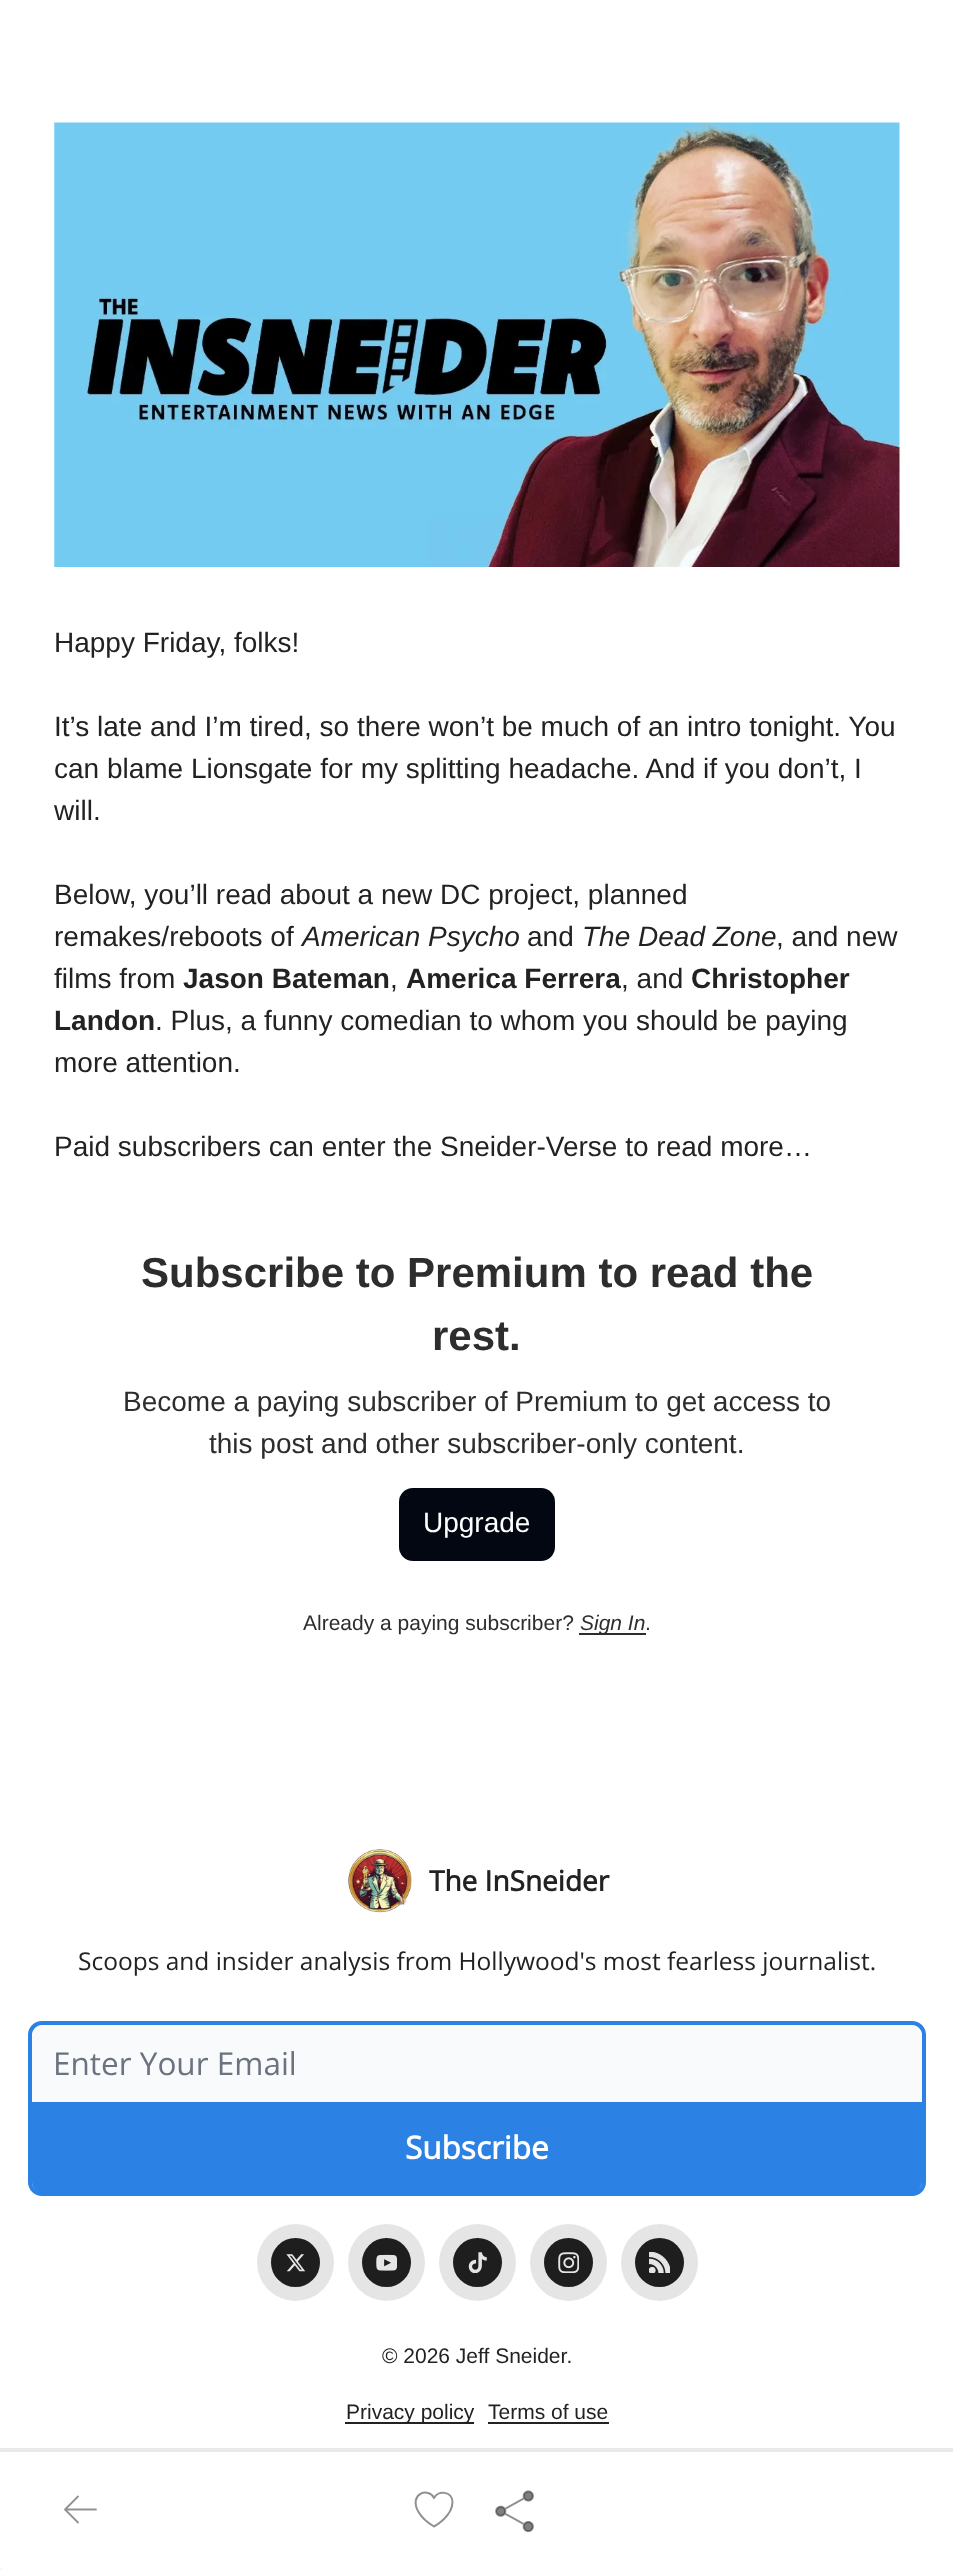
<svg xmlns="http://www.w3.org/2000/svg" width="953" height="2570">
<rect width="100%" height="100%" fill="#fff"/>
<image x="54" y="122" width="846" height="445" href="media/1.png"/>
<text x="54" y="652" style="font-family:Liberation Sans;font-size:28px;fill:#222">Happy Friday, folks!</text>
<text x="54" y="736" style="font-family:Liberation Sans;font-size:28px;fill:#222">It’s late and I’m tired, so there won’t be much of an intro tonight. You</text>
<text x="54" y="778" style="font-family:Liberation Sans;font-size:28px;fill:#222">can blame Lionsgate for my splitting headache. And if you don’t, I</text>
<text x="54" y="820" style="font-family:Liberation Sans;font-size:28px;fill:#222">will.</text>
<text x="54" y="904" style="font-family:Liberation Sans;font-size:28px;fill:#222">Below, you’ll read about a new DC project, planned</text>
<text x="54" y="946" style="font-family:Liberation Sans;font-size:28px;fill:#222">remakes/reboots of</text>
<text x="302" y="946" style="font-family:Liberation Sans;font-size:28px;font-style:italic;fill:#222">American Psycho</text>
<text x="527" y="946" style="font-family:Liberation Sans;font-size:28px;fill:#222">and</text>
<text x="582" y="946" style="font-family:Liberation Sans;font-size:28px;font-style:italic;fill:#222">The Dead Zone</text>
<text x="776" y="946" style="font-family:Liberation Sans;font-size:28px;fill:#222">, and new</text>
<text x="54" y="988" style="font-family:Liberation Sans;font-size:28px;fill:#222">films from</text>
<text x="183" y="988" style="font-family:Liberation Sans;font-size:28px;font-weight:bold;fill:#222">Jason Bateman</text>
<text x="390" y="988" style="font-family:Liberation Sans;font-size:28px;fill:#222">,</text>
<text x="406" y="988" style="font-family:Liberation Sans;font-size:28px;font-weight:bold;fill:#222">America Ferrera</text>
<text x="621" y="988" style="font-family:Liberation Sans;font-size:28px;fill:#222">, and</text>
<text x="691" y="988" style="font-family:Liberation Sans;font-size:28px;font-weight:bold;fill:#222">Christopher</text>
<text x="54" y="1030" style="font-family:Liberation Sans;font-size:28px;font-weight:bold;fill:#222">Landon</text>
<text x="155" y="1030" style="font-family:Liberation Sans;font-size:28px;fill:#222">. Plus, a funny comedian to whom you should be paying</text>
<text x="54" y="1072" style="font-family:Liberation Sans;font-size:28px;fill:#222">more attention.</text>
<text x="54" y="1156" style="font-family:Liberation Sans;font-size:28px;fill:#222">Paid subscribers can enter the Sneider-Verse to read more…</text>
<text x="141" y="1287" style="font-family:Liberation Sans;font-size:42px;font-weight:bold;fill:#2d2d2d">Subscribe to Premium to read the</text>
<text x="432" y="1350" style="font-family:Liberation Sans;font-size:42px;font-weight:bold;fill:#2d2d2d">rest.</text>
<text x="123" y="1411" style="font-family:Liberation Sans;font-size:28px;fill:#2d2d2d">Become a paying subscriber of Premium to get access to</text>
<text x="209" y="1453" style="font-family:Liberation Sans;font-size:28px;fill:#2d2d2d">this post and other subscriber-only content.</text>
<rect x="399" y="1488" width="156" height="73" rx="14" fill="#030712"/>
<text x="423" y="1532" style="font-family:Liberation Sans;font-size:28px;fill:#fff">Upgrade</text>
<text x="303" y="1630" style="font-family:Liberation Sans;font-size:21px;fill:#2d2d2d">Already a paying subscriber?</text>
<rect x="579" y="1633" width="67" height="2" fill="#2d2d2d"/>
<text x="580" y="1630" style="font-family:Liberation Sans;font-size:21px;font-style:italic;fill:#2d2d2d">Sign In</text>
<text x="645" y="1630" style="font-family:Liberation Sans;font-size:21px;fill:#2d2d2d">.</text>
<rect x="9" y="2492" width="936" height="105" fill="#0000001a" filter="blur(22px)"/>
<rect y="2448" width="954" height="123" rx="7" fill="#fff"/>
<rect y="2448" width="953" height="4" fill="#e9e9e9"/>
<path d="M78 2522.5l-13-13m0 0l13-13m-13 13h31" fill="none" stroke="#919191" stroke-width="1.8" stroke-linecap="round" stroke-linejoin="round"/>
<path d="M452.5 2502c0-10.5-14.5-12.5-18.5-4c-5-11-26-4.5-15.5 14c3.5 6 9.5 11 15.5 14.5c0 0 18.5-10 18.5-24.5z" fill="none" stroke="#919191" stroke-width="2" stroke-linecap="round" stroke-linejoin="round"/>
<image x="495" y="2490" width="39" height="43" href="media/2.png"/>
<image x="348" y="1849" width="64" height="64" href="media/3.png"/>
<text x="429" y="1891" style="font-family:Open Sans;font-size:28px;font-weight:bold;fill:#222">The InSneider</text>
<text x="78" y="1970" style="font-family:Open Sans;font-size:24.5px;fill:#222">Scoops and insider analysis from Hollywood's most fearless journalist.</text>
<rect x="30" y="2023" width="894" height="171" rx="12" fill="#f9fafb" stroke="#2c81e5" stroke-width="4"/>
<path d="M43 2025h868c6 0 11 5 11 11v66h-890v-66c0-6 5-11 11-11z" fill="#f9fafb"/>
<text x="53" y="2075" style="font-family:Open Sans;font-size:31.5px;fill:#6b7280">Enter Your Email</text>
<path d="M32 2102h890v80c0 6-5 11-11 11h-868c-6 0-11-5-11-11z" fill="#2c81e5"/>
<text x="405" y="2159" style="font-family:Open Sans;font-size:31.5px;font-weight:bold;fill:#fff">Subscribe</text>
<circle cx="295.5" cy="2262.5" r="24.5" fill="#222"/>
<image x="286" y="2254" width="20" height="18" href="media/4.png"/>
<circle cx="295.5" cy="2262.5" r="38.5" fill="#0000001a"/>
<circle cx="386.5" cy="2262.5" r="24.5" fill="#222"/>
<image x="376" y="2254" width="21" height="17" href="media/5.png"/>
<circle cx="386.5" cy="2262.5" r="38.5" fill="#0000001a"/>
<circle cx="477.5" cy="2262.5" r="24.5" fill="#222"/>
<image x="468" y="2252" width="19" height="21" href="media/6.png"/>
<circle cx="477.5" cy="2262.5" r="38.5" fill="#0000001a"/>
<circle cx="568.5" cy="2262.5" r="24.5" fill="#222"/>
<image x="558" y="2252" width="21" height="21" href="media/7.png"/>
<circle cx="568.5" cy="2262.5" r="38.5" fill="#0000001a"/>
<circle cx="659.5" cy="2262.5" r="24.5" fill="#222"/>
<image x="649" y="2252" width="21" height="21" href="media/8.png"/>
<circle cx="659.5" cy="2262.5" r="38.5" fill="#0000001a"/>
<text x="382" y="2363" style="font-family:Liberation Sans;font-size:21px;fill:#222">© 2026 Jeff Sneider.</text>
<rect x="345" y="2422" width="129" height="2" fill="#222"/>
<text x="346" y="2419" style="font-family:Liberation Sans;font-size:21px;fill:#222">Privacy policy</text>
<text x="488" y="2419" style="font-family:Liberation Sans;font-size:21px;fill:#222">Terms of use</text>
<rect x="488" y="2422" width="121" height="2" fill="#222"/>
</svg>
